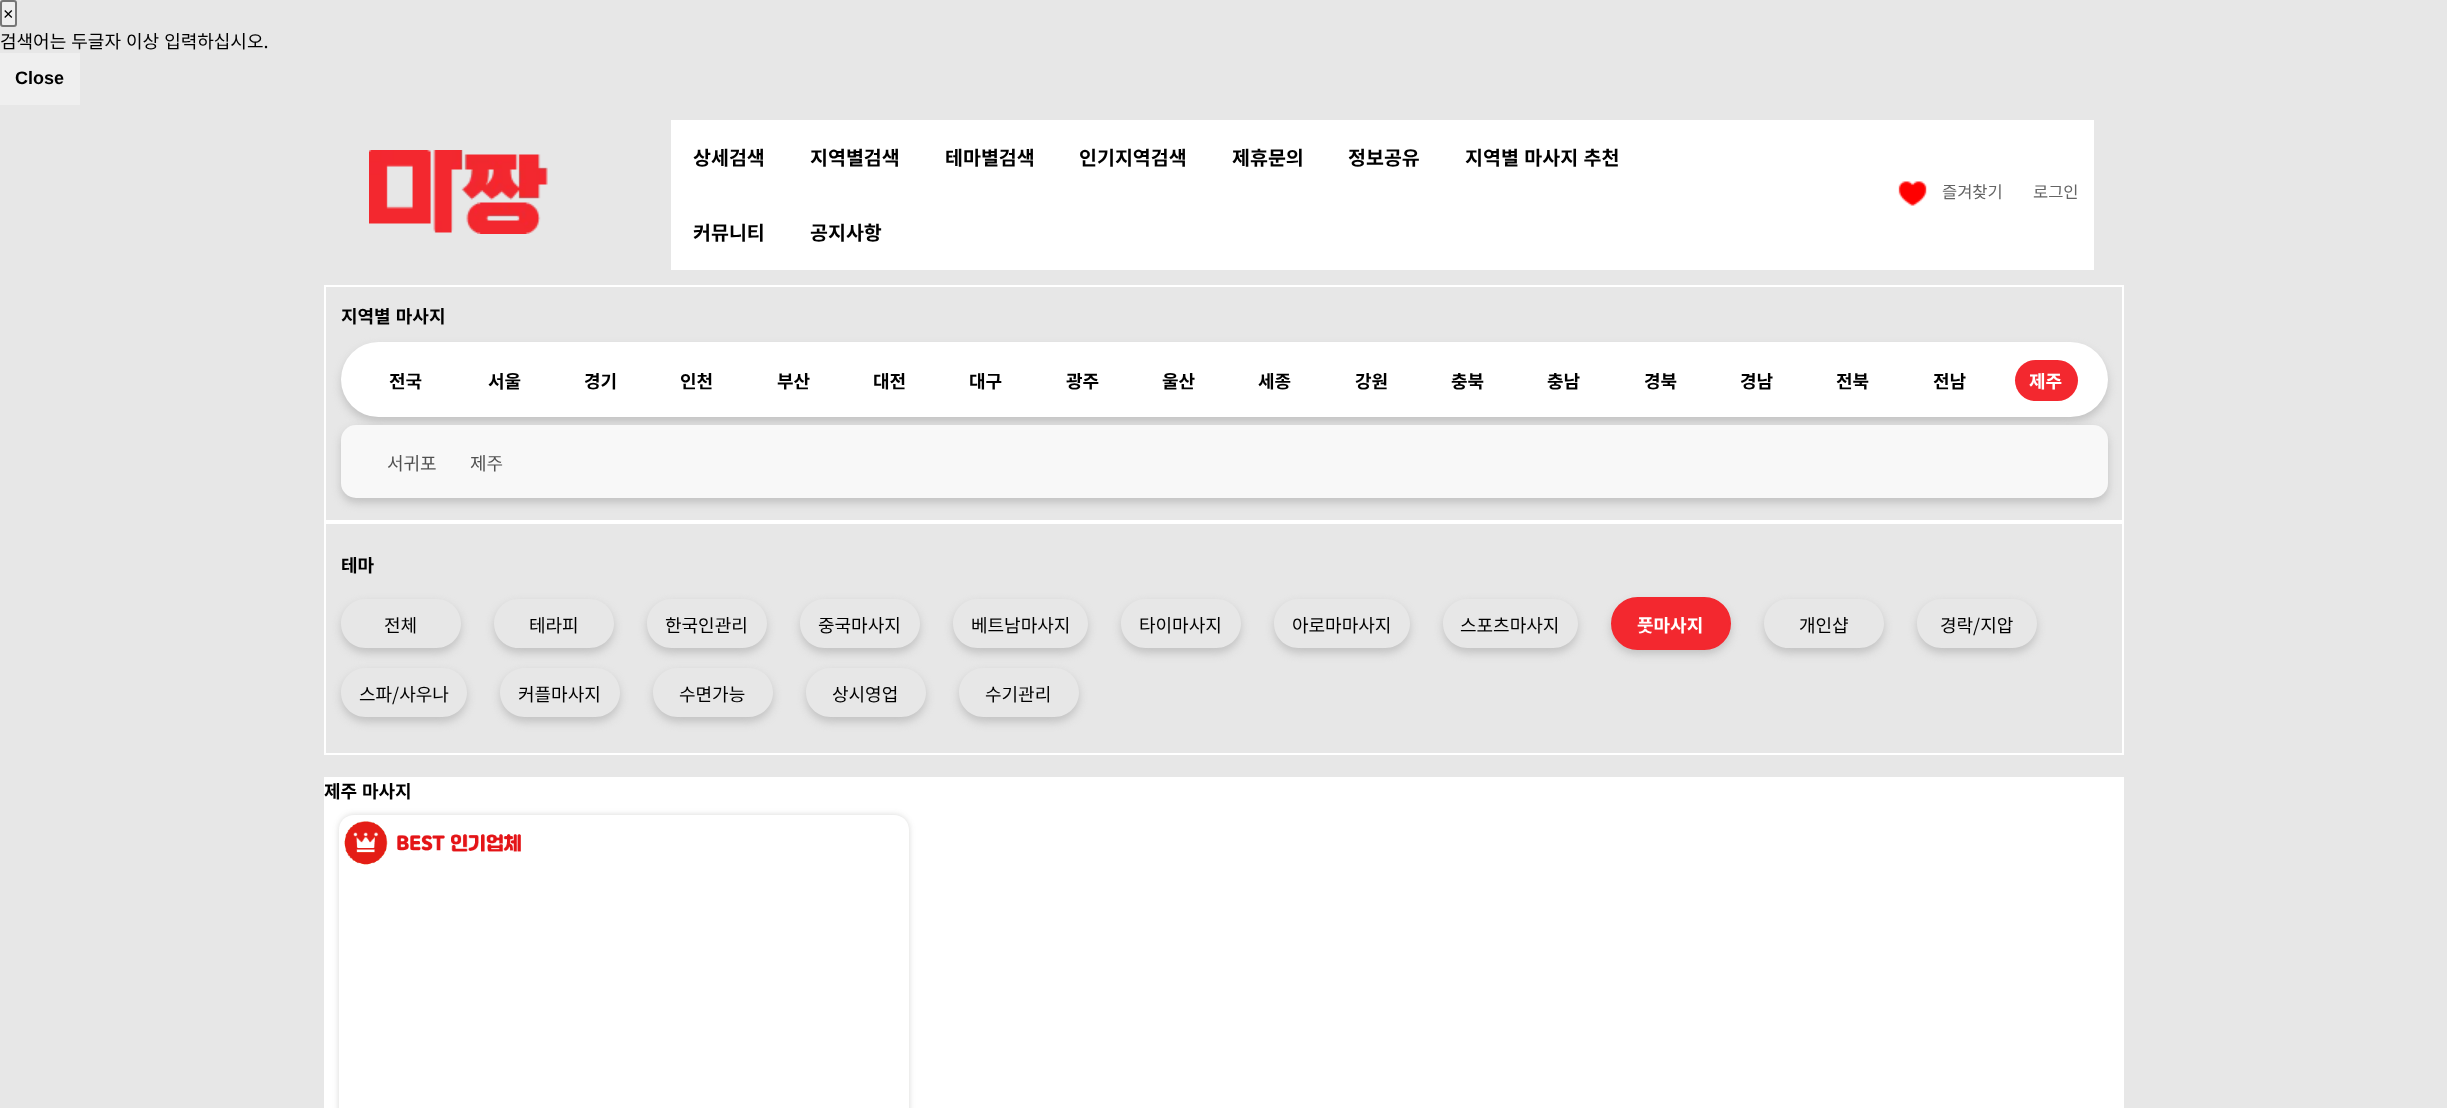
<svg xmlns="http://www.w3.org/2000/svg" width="2447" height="1108">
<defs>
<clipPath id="clip1"><path d="M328 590h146v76h-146zm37.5 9h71c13.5 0 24.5 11 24.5 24.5c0 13.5-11 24.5-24.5 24.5h-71c-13.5 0-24.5-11-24.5-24.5c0-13.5 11-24.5 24.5-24.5z" clip-rule="evenodd"/></clipPath>
<clipPath id="clip2"><path d="M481 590h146v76h-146zm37.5 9h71c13.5 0 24.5 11 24.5 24.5c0 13.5-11 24.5-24.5 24.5h-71c-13.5 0-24.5-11-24.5-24.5c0-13.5 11-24.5 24.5-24.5z" clip-rule="evenodd"/></clipPath>
<clipPath id="clip3"><path d="M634 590h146v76h-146zm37.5 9h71c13.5 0 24.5 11 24.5 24.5c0 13.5-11 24.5-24.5 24.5h-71c-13.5 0-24.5-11-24.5-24.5c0-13.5 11-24.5 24.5-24.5z" clip-rule="evenodd"/></clipPath>
<clipPath id="clip4"><path d="M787 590h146v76h-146zm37.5 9h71c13.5 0 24.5 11 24.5 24.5c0 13.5-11 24.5-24.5 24.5h-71c-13.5 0-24.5-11-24.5-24.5c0-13.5 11-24.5 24.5-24.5z" clip-rule="evenodd"/></clipPath>
<clipPath id="clip5"><path d="M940 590h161v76h-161zm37.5 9h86c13.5 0 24.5 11 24.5 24.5c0 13.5-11 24.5-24.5 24.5h-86c-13.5 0-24.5-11-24.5-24.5c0-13.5 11-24.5 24.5-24.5z" clip-rule="evenodd"/></clipPath>
<clipPath id="clip6"><path d="M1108 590h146v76h-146zm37.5 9h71c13.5 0 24.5 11 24.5 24.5c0 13.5-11 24.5-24.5 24.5h-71c-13.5 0-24.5-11-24.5-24.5c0-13.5 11-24.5 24.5-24.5z" clip-rule="evenodd"/></clipPath>
<clipPath id="clip7"><path d="M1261 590h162v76h-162zm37.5 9h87c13.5 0 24.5 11 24.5 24.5c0 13.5-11 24.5-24.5 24.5h-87c-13.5 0-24.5-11-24.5-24.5c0-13.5 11-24.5 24.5-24.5z" clip-rule="evenodd"/></clipPath>
<clipPath id="clip8"><path d="M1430 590h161v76h-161zm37.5 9h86c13.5 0 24.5 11 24.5 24.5c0 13.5-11 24.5-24.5 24.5h-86c-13.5 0-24.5-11-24.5-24.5c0-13.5 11-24.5 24.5-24.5z" clip-rule="evenodd"/></clipPath>
<clipPath id="clip9"><path d="M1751 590h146v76h-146zm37.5 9h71c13.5 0 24.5 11 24.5 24.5c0 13.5-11 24.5-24.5 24.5h-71c-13.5 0-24.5-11-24.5-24.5c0-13.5 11-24.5 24.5-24.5z" clip-rule="evenodd"/></clipPath>
<clipPath id="clip10"><path d="M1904 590h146v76h-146zm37.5 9h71c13.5 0 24.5 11 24.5 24.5c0 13.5-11 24.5-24.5 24.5h-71c-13.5 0-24.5-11-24.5-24.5c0-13.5 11-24.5 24.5-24.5z" clip-rule="evenodd"/></clipPath>
<clipPath id="clip11"><path d="M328 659h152v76h-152zm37.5 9h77c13.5 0 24.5 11 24.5 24.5c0 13.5-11 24.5-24.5 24.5h-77c-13.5 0-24.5-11-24.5-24.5c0-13.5 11-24.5 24.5-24.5z" clip-rule="evenodd"/></clipPath>
<clipPath id="clip12"><path d="M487 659h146v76h-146zm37.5 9h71c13.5 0 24.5 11 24.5 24.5c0 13.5-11 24.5-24.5 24.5h-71c-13.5 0-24.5-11-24.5-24.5c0-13.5 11-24.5 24.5-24.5z" clip-rule="evenodd"/></clipPath>
<clipPath id="clip13"><path d="M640 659h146v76h-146zm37.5 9h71c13.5 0 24.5 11 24.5 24.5c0 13.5-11 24.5-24.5 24.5h-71c-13.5 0-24.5-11-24.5-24.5c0-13.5 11-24.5 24.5-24.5z" clip-rule="evenodd"/></clipPath>
<clipPath id="clip14"><path d="M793 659h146v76h-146zm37.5 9h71c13.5 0 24.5 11 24.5 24.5c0 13.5-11 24.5-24.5 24.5h-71c-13.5 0-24.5-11-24.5-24.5c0-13.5 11-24.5 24.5-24.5z" clip-rule="evenodd"/></clipPath>
<clipPath id="clip15"><path d="M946 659h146v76h-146zm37.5 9h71c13.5 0 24.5 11 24.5 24.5c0 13.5-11 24.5-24.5 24.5h-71c-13.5 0-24.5-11-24.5-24.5c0-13.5 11-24.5 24.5-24.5z" clip-rule="evenodd"/></clipPath>
<clipPath id="clip16"><path d="M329 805h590v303h-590zm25 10h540c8.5 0 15 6.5 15 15v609c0 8.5-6.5 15-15 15h-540c-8.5 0-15-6.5-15-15v-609c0-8.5 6.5-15 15-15z" clip-rule="evenodd"/></clipPath>
</defs>
<rect width="100%" height="100%" fill="#e7e7e7"/>
<rect x="1" y="1" width="15" height="25" rx="2" fill="#efefef" stroke="#767676" stroke-width="2"/>
<text x="3" y="20" style="font-family:Liberation Sans;font-size:18px;fill:#000">×</text>
<text x="0" y="48" word-spacing="1" style="font-family:Noto Sans KR;font-size:18px;fill:#000">검색어는 두글자 이상 입력하십시오.</text>
<rect y="53" width="80" height="52" fill="#efefef"/>
<text x="15" y="84" style="font-family:Liberation Sans;font-size:18px;font-weight:bold;fill:#000">Close</text>
<image x="369" y="150" width="179" height="84" href="media/1.png"/>
<rect x="671" y="120" width="1423" height="150" fill="#fff"/>
<text x="693" y="165" style="font-family:Noto Sans KR;font-size:19.5px;font-weight:bold;fill:#000">상세검색</text>
<text x="810" y="165" style="font-family:Noto Sans KR;font-size:19.5px;font-weight:bold;fill:#000">지역별검색</text>
<text x="945" y="165" style="font-family:Noto Sans KR;font-size:19.5px;font-weight:bold;fill:#000">테마별검색</text>
<text x="1079" y="165" style="font-family:Noto Sans KR;font-size:19.5px;font-weight:bold;fill:#000">인기지역검색</text>
<text x="1232" y="165" style="font-family:Noto Sans KR;font-size:19.5px;font-weight:bold;fill:#000">제휴문의</text>
<text x="1348" y="165" style="font-family:Noto Sans KR;font-size:19.5px;font-weight:bold;fill:#000">정보공유</text>
<text x="1465" y="165" word-spacing="1" style="font-family:Noto Sans KR;font-size:19.5px;font-weight:bold;fill:#000">지역별 마사지 추천</text>
<text x="693" y="240" style="font-family:Noto Sans KR;font-size:19.5px;font-weight:bold;fill:#000">커뮤니티</text>
<text x="810" y="240" style="font-family:Noto Sans KR;font-size:19.5px;font-weight:bold;fill:#000">공지사항</text>
<image x="1898" y="181" width="29" height="25" href="media/2.png"/>
<text x="1942" y="198" style="font-family:Noto Sans KR;font-size:16.5px;fill:#646464">즐겨찾기</text>
<text x="2033" y="198" style="font-family:Noto Sans KR;font-size:16.5px;fill:#646464">로그인</text>
<rect x="325" y="286" width="1798" height="235" fill="none" stroke="#fff" stroke-width="2"/>
<text x="341" y="323" word-spacing="1" style="font-family:Noto Sans KR;font-size:18px;font-weight:bold;fill:#000">지역별 마사지</text>
<rect x="341" y="347" width="1767" height="75" rx="37.5" fill="#c2c2c2" filter="blur(4px)"/>
<rect x="341" y="342" width="1767" height="75" rx="37.5" fill="#fff"/>
<text x="389" y="388" style="font-family:Noto Sans KR;font-size:18px;font-weight:bold;fill:#000">전국</text>
<text x="488" y="388" style="font-family:Noto Sans KR;font-size:18px;font-weight:bold;fill:#000">서울</text>
<text x="584" y="388" style="font-family:Noto Sans KR;font-size:18px;font-weight:bold;fill:#000">경기</text>
<text x="680" y="388" style="font-family:Noto Sans KR;font-size:18px;font-weight:bold;fill:#000">인천</text>
<text x="777" y="388" style="font-family:Noto Sans KR;font-size:18px;font-weight:bold;fill:#000">부산</text>
<text x="873" y="388" style="font-family:Noto Sans KR;font-size:18px;font-weight:bold;fill:#000">대전</text>
<text x="969" y="388" style="font-family:Noto Sans KR;font-size:18px;font-weight:bold;fill:#000">대구</text>
<text x="1066" y="388" style="font-family:Noto Sans KR;font-size:18px;font-weight:bold;fill:#000">광주</text>
<text x="1162" y="388" style="font-family:Noto Sans KR;font-size:18px;font-weight:bold;fill:#000">울산</text>
<text x="1258" y="388" style="font-family:Noto Sans KR;font-size:18px;font-weight:bold;fill:#000">세종</text>
<text x="1355" y="388" style="font-family:Noto Sans KR;font-size:18px;font-weight:bold;fill:#000">강원</text>
<text x="1451" y="388" style="font-family:Noto Sans KR;font-size:18px;font-weight:bold;fill:#000">충북</text>
<text x="1547" y="388" style="font-family:Noto Sans KR;font-size:18px;font-weight:bold;fill:#000">충남</text>
<text x="1644" y="388" style="font-family:Noto Sans KR;font-size:18px;font-weight:bold;fill:#000">경북</text>
<text x="1740" y="388" style="font-family:Noto Sans KR;font-size:18px;font-weight:bold;fill:#000">경남</text>
<text x="1836" y="388" style="font-family:Noto Sans KR;font-size:18px;font-weight:bold;fill:#000">전북</text>
<text x="1933" y="388" style="font-family:Noto Sans KR;font-size:18px;font-weight:bold;fill:#000">전남</text>
<rect x="2015" y="360" width="63" height="41" rx="20.5" fill="#f3282f"/>
<text x="2029" y="388" style="font-family:Noto Sans KR;font-size:18px;font-weight:bold;fill:#fff">제주</text>
<rect x="341" y="429" width="1767" height="74" rx="15" fill="#c2c2c2" filter="blur(4px)"/>
<rect x="341" y="425" width="1767" height="73" rx="15" fill="#f8f8f8"/>
<text x="387" y="470" style="font-family:Noto Sans KR;font-size:18px;fill:#515151">서귀포</text>
<text x="470" y="470" style="font-family:Noto Sans KR;font-size:18px;fill:#515151">제주</text>
<rect x="325" y="523" width="1798" height="231" fill="none" stroke="#fff" stroke-width="2"/>
<text x="341" y="572" style="font-family:Noto Sans KR;font-size:18px;font-weight:bold;fill:#000">테마</text>
<g clip-path="url(#clip1)">
<rect x="341" y="603" width="120" height="50" rx="25" fill="#c2c2c2" filter="blur(4px)"/>
</g>
<text x="384" y="632" style="font-family:Noto Sans KR;font-size:18px;fill:#000">전체</text>
<g clip-path="url(#clip2)">
<rect x="494" y="603" width="120" height="50" rx="25" fill="#c2c2c2" filter="blur(4px)"/>
</g>
<text x="529" y="632" style="font-family:Noto Sans KR;font-size:18px;fill:#000">테라피</text>
<g clip-path="url(#clip3)">
<rect x="647" y="603" width="120" height="50" rx="25" fill="#c2c2c2" filter="blur(4px)"/>
</g>
<text x="665" y="632" style="font-family:Noto Sans KR;font-size:18px;fill:#000">한국인관리</text>
<g clip-path="url(#clip4)">
<rect x="800" y="603" width="120" height="50" rx="25" fill="#c2c2c2" filter="blur(4px)"/>
</g>
<text x="818" y="632" style="font-family:Noto Sans KR;font-size:18px;fill:#000">중국마사지</text>
<g clip-path="url(#clip5)">
<rect x="953" y="603" width="135" height="50" rx="25" fill="#c2c2c2" filter="blur(4px)"/>
</g>
<text x="971" y="632" style="font-family:Noto Sans KR;font-size:18px;fill:#000">베트남마사지</text>
<g clip-path="url(#clip6)">
<rect x="1121" y="603" width="120" height="50" rx="25" fill="#c2c2c2" filter="blur(4px)"/>
</g>
<text x="1139" y="632" style="font-family:Noto Sans KR;font-size:18px;fill:#000">타이마사지</text>
<g clip-path="url(#clip7)">
<rect x="1274" y="603" width="136" height="50" rx="25" fill="#c2c2c2" filter="blur(4px)"/>
</g>
<text x="1292" y="632" style="font-family:Noto Sans KR;font-size:18px;fill:#000">아로마마사지</text>
<g clip-path="url(#clip8)">
<rect x="1443" y="603" width="135" height="50" rx="25" fill="#c2c2c2" filter="blur(4px)"/>
</g>
<text x="1460" y="632" style="font-family:Noto Sans KR;font-size:18px;fill:#000">스포츠마사지</text>
<rect x="1611" y="602" width="120" height="52" rx="26" fill="#c2c2c2" filter="blur(4px)"/>
<rect x="1612" y="598" width="118" height="51" rx="25.5" fill="#f3282f" stroke="#f3282f" stroke-width="2"/>
<text x="1637" y="632" style="font-family:Noto Sans KR;font-size:18px;font-weight:bold;fill:#fff">풋마사지</text>
<g clip-path="url(#clip9)">
<rect x="1764" y="603" width="120" height="50" rx="25" fill="#c2c2c2" filter="blur(4px)"/>
</g>
<text x="1799" y="632" style="font-family:Noto Sans KR;font-size:18px;fill:#000">개인샵</text>
<g clip-path="url(#clip10)">
<rect x="1917" y="603" width="120" height="50" rx="25" fill="#c2c2c2" filter="blur(4px)"/>
</g>
<text x="1940" y="632" style="font-family:Noto Sans KR;font-size:18px;fill:#000">경락/지압</text>
<g clip-path="url(#clip11)">
<rect x="341" y="672" width="126" height="50" rx="25" fill="#c2c2c2" filter="blur(4px)"/>
</g>
<text x="359" y="701" style="font-family:Noto Sans KR;font-size:18px;fill:#000">스파/사우나</text>
<g clip-path="url(#clip12)">
<rect x="500" y="672" width="120" height="50" rx="25" fill="#c2c2c2" filter="blur(4px)"/>
</g>
<text x="518" y="701" style="font-family:Noto Sans KR;font-size:18px;fill:#000">커플마사지</text>
<g clip-path="url(#clip13)">
<rect x="653" y="672" width="120" height="50" rx="25" fill="#c2c2c2" filter="blur(4px)"/>
</g>
<text x="679" y="701" style="font-family:Noto Sans KR;font-size:18px;fill:#000">수면가능</text>
<g clip-path="url(#clip14)">
<rect x="806" y="672" width="120" height="50" rx="25" fill="#c2c2c2" filter="blur(4px)"/>
</g>
<text x="832" y="701" style="font-family:Noto Sans KR;font-size:18px;fill:#000">상시영업</text>
<g clip-path="url(#clip15)">
<rect x="959" y="672" width="120" height="50" rx="25" fill="#c2c2c2" filter="blur(4px)"/>
</g>
<text x="985" y="701" style="font-family:Noto Sans KR;font-size:18px;fill:#000">수기관리</text>
<rect x="324" y="777" width="1800" height="331" fill="#fff"/>
<text x="324" y="798" style="font-family:Noto Sans KR;font-size:18px;font-weight:bold;fill:#000">제주</text>
<text x="362" y="798" style="font-family:Noto Sans KR;font-size:18px;font-weight:bold;fill:#000">마사지</text>
<g clip-path="url(#clip16)">
<rect x="339" y="815" width="570" height="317" rx="15" fill="#48474236" filter="blur(3px)"/>
</g>
<image x="344" y="821" width="177" height="44" href="media/3.png"/>
</svg>
